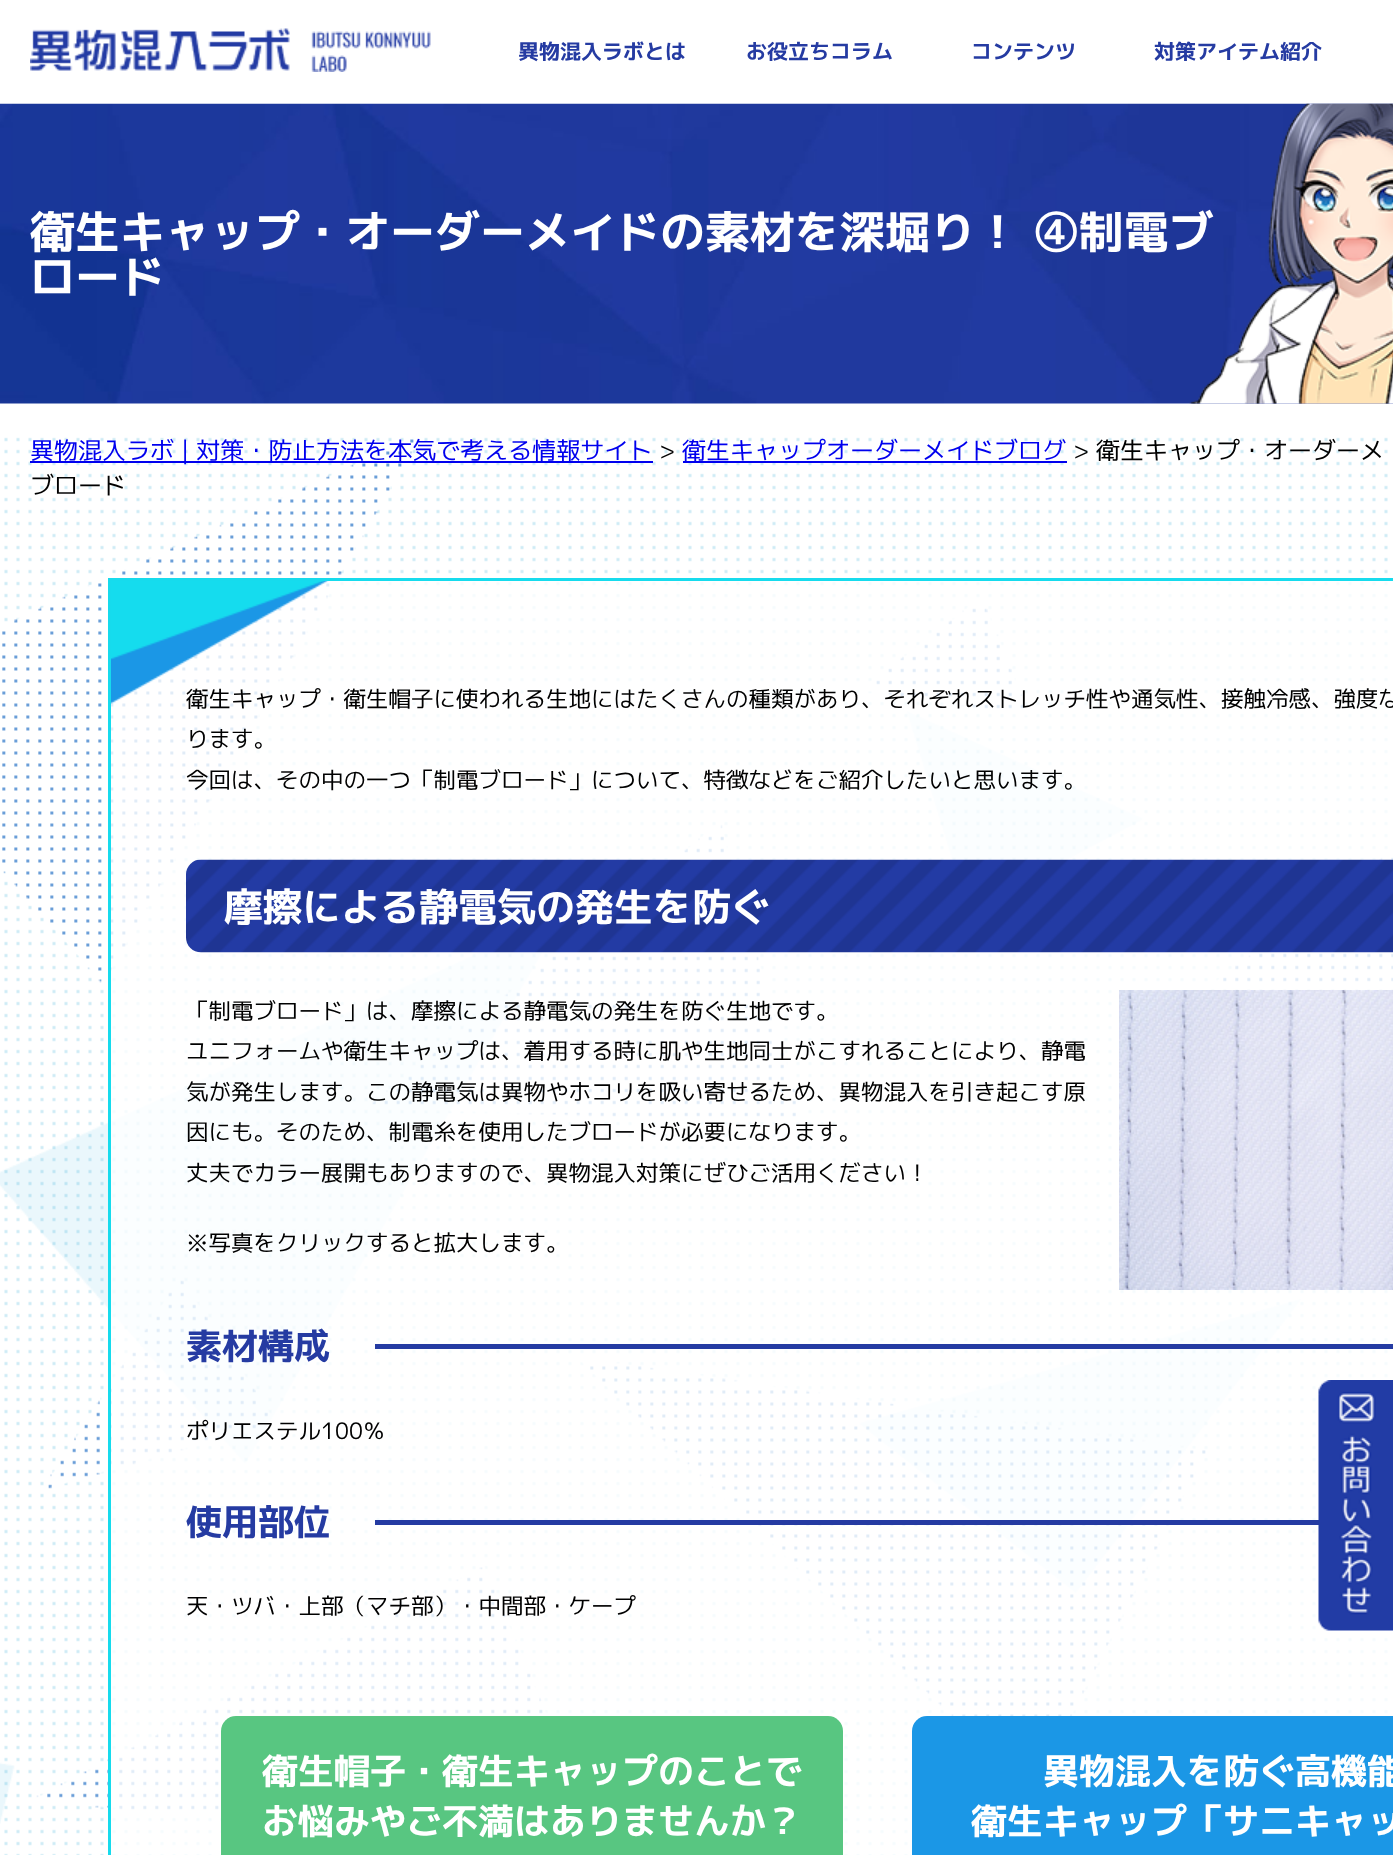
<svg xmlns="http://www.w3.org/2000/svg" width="1393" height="1855">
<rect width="100%" height="100%" fill="#fff"/>
<image x="30" y="28" width="401" height="44" href="media/1.png"/>
<text x="518" y="59" style="font-family:'M PLUS 1p';font-size:21px;font-weight:bold;fill:#253ba2">異物混入ラボとは</text>
<text x="746" y="59" transform="rotate(-0.1 746 59)" style="font-family:'M PLUS 1p';font-size:21px;font-weight:bold;fill:#253ba2">お役立ちコラム</text>
<text x="971" y="59" style="font-family:'M PLUS 1p';font-size:21px;font-weight:bold;fill:#253ba2">コンテンツ</text>
<text x="1154" y="59" style="font-family:'M PLUS 1p';font-size:21px;font-weight:bold;fill:#253ba2">対策アイテム紹介</text>
<image x="0" y="103" width="1393" height="301" href="media/2.png"/>
<text x="30" y="248" style="font-family:'M PLUS 1p';font-size:45px;font-weight:bold;fill:#fff">衛生キャップ・オーダーメイドの素材を深堀り！ ④制電ブ</text>
<text x="30" y="293" style="font-family:'M PLUS 1p';font-size:45px;font-weight:bold;fill:#fff">ロード</text>
<image x="1189" y="103" width="204" height="301" href="media/3.png"/>
<image x="4" y="437" width="1384" height="1418" href="media/4.png"/>
<image x="2" y="437" width="1391" height="1382" href="media/5.png"/>
<rect x="30" y="461" width="623" height="2" fill="#00e"/>
<text x="30" y="459" style="font-family:'M PLUS 1p';font-size:24px;fill:#00e">異物混入ラボ | 対策・防止方法を本気で考える情報サイト</text>
<text x="659" y="459" style="font-family:'M PLUS 1p';font-size:24px;fill:#000">&gt;</text>
<rect x="683" y="461" width="384" height="2" fill="#00e"/>
<text x="682" y="459" style="font-family:'M PLUS 1p';font-size:24px;fill:#00e">衛生キャップオーダーメイドブログ</text>
<text x="1073" y="459" style="font-family:'M PLUS 1p';font-size:24px;fill:#000">&gt; 衛生キャップ・オーダーメ</text>
<text x="30" y="494" style="font-family:'M PLUS 1p';font-size:24px;fill:#000">ブロード</text>
<image x="0" y="711" width="1301" height="1113" href="media/6.png"/>
<rect x="111" y="581" width="1282" height="1274" fill="#ffffffcc"/>
<image x="111" y="581" width="218" height="123" href="media/7.png"/>
<rect x="109.5" y="579.5" width="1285" height="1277" fill="none" stroke="#16dbed" stroke-width="3"/>
<text x="186" y="707" style="font-family:'M PLUS 1p';font-size:22.5px;fill:#000">衛生キャップ・衛生帽子に使われる生地にはたくさんの種類があり、それぞれストレッチ性や通気性、接触冷感、強度な</text>
<text x="186" y="747" style="font-family:'M PLUS 1p';font-size:22.5px;fill:#000">ります。</text>
<text x="186" y="788" style="font-family:'M PLUS 1p';font-size:22.5px;fill:#000">今回は、その中の一つ「制電ブロード」について、特徴などをご紹介したいと思います。</text>
<image x="186" y="859" width="1207" height="94" href="media/8.png"/>
<text x="224" y="921" style="font-family:'M PLUS 1p';font-size:39px;font-weight:bold;fill:#fff">摩擦による静電気の発生を防ぐ</text>
<text x="186" y="1019" style="font-family:'M PLUS 1p';font-size:22.5px;fill:#000">「制電ブロード」は、摩擦による静電気の発生を防ぐ生地です。</text>
<text x="186" y="1059" style="font-family:'M PLUS 1p';font-size:22.5px;fill:#000">ユニフォームや衛生キャップは、着用する時に肌や生地同士がこすれることにより、静電</text>
<text x="186" y="1100" style="font-family:'M PLUS 1p';font-size:22.5px;fill:#000">気が発生します。この静電気は異物やホコリを吸い寄せるため、異物混入を引き起こす原</text>
<text x="186" y="1140" style="font-family:'M PLUS 1p';font-size:22.5px;fill:#000">因にも。そのため、制電糸を使用したブロードが必要になります。</text>
<text x="186" y="1181" style="font-family:'M PLUS 1p';font-size:22.5px;fill:#000">丈夫でカラー展開もありますので、異物混入対策にぜひご活用ください！</text>
<image x="1119" y="990" width="274" height="300" href="media/9.png"/>
<text x="186" y="1251" style="font-family:'M PLUS 1p';font-size:22.5px;fill:#000">※写真をクリックすると拡大します。</text>
<text x="186" y="1359" style="font-family:'M PLUS 1p';font-size:36px;font-weight:bold;fill:#253ba2">素材構成</text>
<rect x="375" y="1344" width="1018" height="5" fill="#253ba2"/>
<text x="186" y="1439" style="font-family:'M PLUS 1p';font-size:22.5px;fill:#000">ポリエステル100％</text>
<text x="186" y="1535" style="font-family:'M PLUS 1p';font-size:36px;font-weight:bold;fill:#253ba2">使用部位</text>
<rect x="375" y="1520" width="944" height="5" fill="#253ba2"/>
<text x="186" y="1614" style="font-family:'M PLUS 1p';font-size:22.5px;fill:#000">天・ツバ・上部（マチ部）・中間部・ケープ</text>
<rect x="221" y="1716" width="622" height="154" rx="15" fill="#58c681"/>
<text x="262" y="1784" style="font-family:'M PLUS 1p';font-size:36px;font-weight:bold;fill:#fff">衛生帽子・衛生キャップのことで</text>
<text x="262" y="1834" style="font-family:'M PLUS 1p';font-size:36px;font-weight:bold;fill:#fff">お悩みやご不満はありませんか？</text>
<rect x="912" y="1716" width="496" height="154" rx="15" fill="#1b97e6"/>
<text x="1043" y="1784" style="font-family:'M PLUS 1p';font-size:36px;font-weight:bold;fill:#fff">異物混入を防ぐ高機能</text>
<text x="971" y="1834" style="font-family:'M PLUS 1p';font-size:36px;font-weight:bold;fill:#fff">衛生キャップ「サニキャッ</text>
<image x="1318" y="1380" width="75" height="251" href="media/10.png"/>
</svg>
